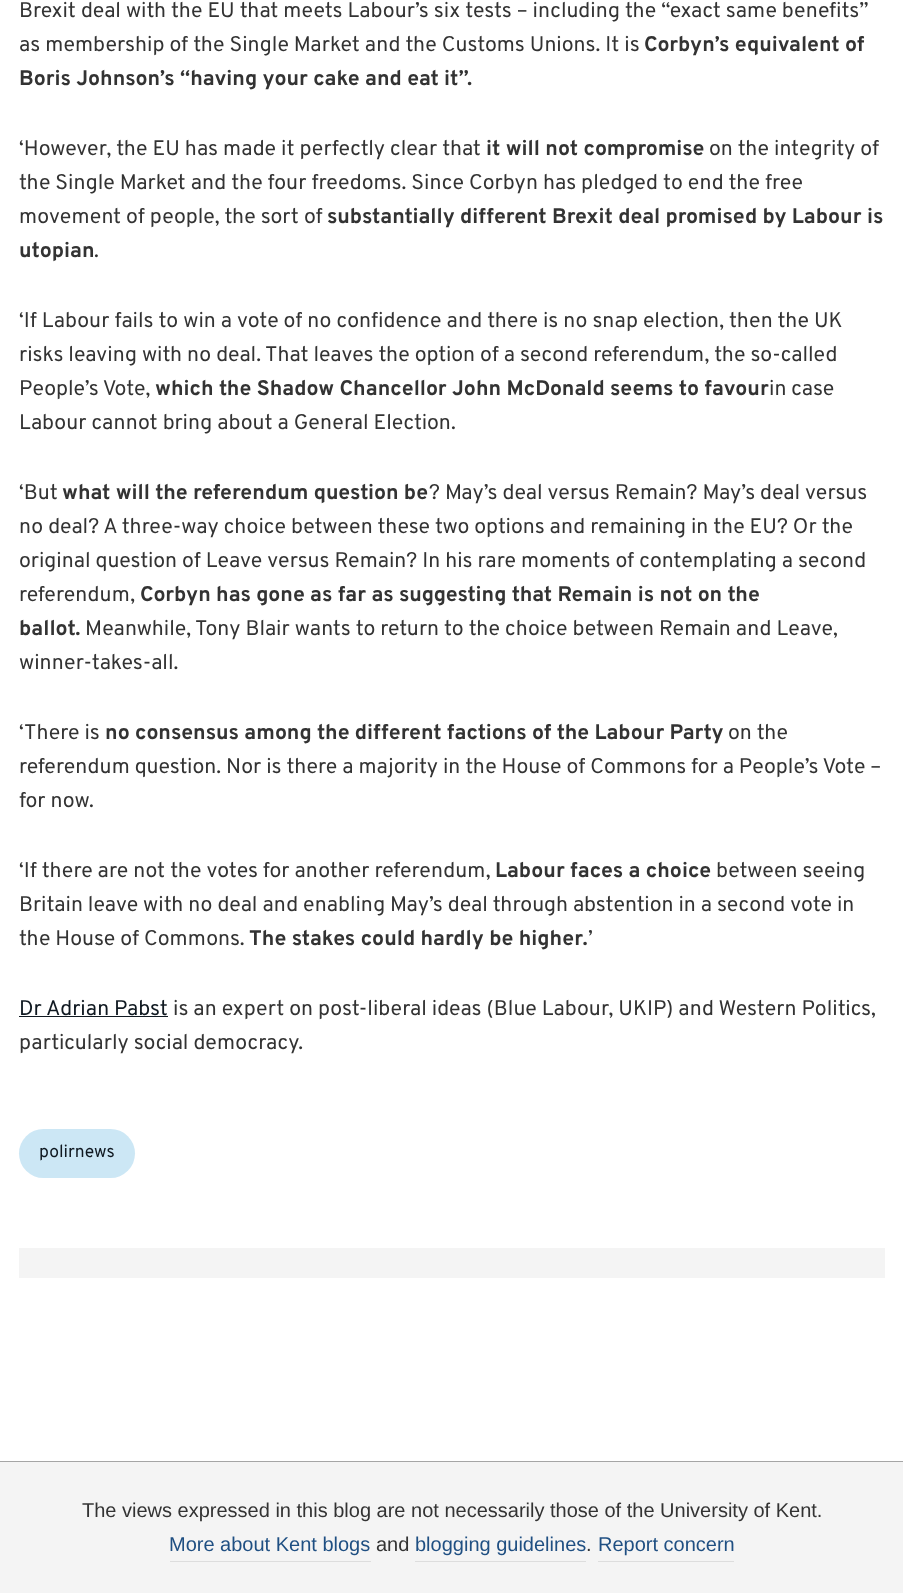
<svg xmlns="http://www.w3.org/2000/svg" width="903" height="1593">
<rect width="100%" height="100%" fill="#fff"/>
<text x="19" y="17" style="font-family:Overpass;font-size:21.25px;fill:#333">Brexit deal with the EU that meets Labour’s six tests – including the “exact same benefits”</text>
<text x="19" y="51" style="font-family:Overpass;font-size:21.25px;fill:#333">as membership of the Single Market and the Customs Unions. It is</text>
<text x="644" y="51" style="font-family:Overpass;font-size:21.25px;font-weight:bold;fill:#333">Corbyn’s equivalent of</text>
<text x="19" y="85" style="font-family:Overpass;font-size:21.25px;font-weight:bold;fill:#333">Boris Johnson’s “having your cake and eat it”.</text>
<text x="19" y="155" style="font-family:Overpass;font-size:21.25px;fill:#333">‘However, the EU has made it perfectly clear that</text>
<text x="486" y="155" style="font-family:Overpass;font-size:21.25px;font-weight:bold;fill:#333">it will not compromise</text>
<text x="709" y="155" style="font-family:Overpass;font-size:21.25px;fill:#333">on the integrity of</text>
<text x="19" y="189" style="font-family:Overpass;font-size:21.25px;fill:#333">the Single Market and the four freedoms. Since Corbyn has pledged to end the free</text>
<text x="19" y="223" style="font-family:Overpass;font-size:21.25px;fill:#333">movement of people, the sort of</text>
<text x="327" y="223" style="font-family:Overpass;font-size:21.25px;font-weight:bold;fill:#333">substantially different Brexit deal promised by Labour is</text>
<text x="19" y="257" style="font-family:Overpass;font-size:21.25px;font-weight:bold;fill:#333">utopian</text>
<text x="94" y="257" style="font-family:Overpass;font-size:21.25px;fill:#333">.</text>
<text x="19" y="327" style="font-family:Overpass;font-size:21.25px;fill:#333">‘If Labour fails to win a vote of no confidence and there is no snap election, then the UK</text>
<text x="19" y="361" style="font-family:Overpass;font-size:21.25px;fill:#333">risks leaving with no deal. That leaves the option of a second referendum, the so-called</text>
<text x="19" y="395" style="font-family:Overpass;font-size:21.25px;fill:#333">People’s Vote,</text>
<text x="155" y="395" style="font-family:Overpass;font-size:21.25px;font-weight:bold;fill:#333">which the Shadow Chancellor John McDonald seems to favour</text>
<text x="769" y="395" style="font-family:Overpass;font-size:21.25px;fill:#333">in case</text>
<text x="19" y="429" style="font-family:Overpass;font-size:21.25px;fill:#333">Labour cannot bring about a General Election.</text>
<text x="19" y="499" style="font-family:Overpass;font-size:21.25px;fill:#333">‘But</text>
<text x="62" y="499" style="font-family:Overpass;font-size:21.25px;font-weight:bold;fill:#333">what will the referendum question be</text>
<text x="429" y="499" style="font-family:Overpass;font-size:21.25px;fill:#333">? May’s deal versus Remain? May’s deal versus</text>
<text x="19" y="533" style="font-family:Overpass;font-size:21.25px;fill:#333">no deal? A three-way choice between these two options and remaining in the EU? Or the</text>
<text x="19" y="567" style="font-family:Overpass;font-size:21.25px;fill:#333">original question of Leave versus Remain? In his rare moments of contemplating a second</text>
<text x="19" y="601" style="font-family:Overpass;font-size:21.25px;fill:#333">referendum,</text>
<text x="140" y="601" style="font-family:Overpass;font-size:21.25px;font-weight:bold;fill:#333">Corbyn has gone as far as suggesting that Remain is not on the</text>
<text x="19" y="635" style="font-family:Overpass;font-size:21.25px;font-weight:bold;fill:#333">ballot.</text>
<text x="85" y="635" style="font-family:Overpass;font-size:21.25px;fill:#333">Meanwhile, Tony Blair wants to return to the choice between Remain and Leave,</text>
<text x="19" y="669" style="font-family:Overpass;font-size:21.25px;fill:#333">winner-takes-all.</text>
<text x="19" y="739" style="font-family:Overpass;font-size:21.25px;fill:#333">‘There is</text>
<text x="105" y="739" style="font-family:Overpass;font-size:21.25px;font-weight:bold;fill:#333">no consensus among the different factions of the Labour Party</text>
<text x="728" y="739" style="font-family:Overpass;font-size:21.25px;fill:#333">on the</text>
<text x="19" y="773" style="font-family:Overpass;font-size:21.25px;fill:#333">referendum question. Nor is there a majority in the House of Commons for a People’s Vote –</text>
<text x="19" y="807" style="font-family:Overpass;font-size:21.25px;fill:#333">for now.</text>
<text x="19" y="877" style="font-family:Overpass;font-size:21.25px;fill:#333">‘If there are not the votes for another referendum,</text>
<text x="495" y="877" style="font-family:Overpass;font-size:21.25px;font-weight:bold;fill:#333">Labour faces a choice</text>
<text x="716" y="877" style="font-family:Overpass;font-size:21.25px;fill:#333">between seeing</text>
<text x="19" y="911" style="font-family:Overpass;font-size:21.25px;fill:#333">Britain leave with no deal and enabling May’s deal through abstention in a second vote in</text>
<text x="19" y="945" style="font-family:Overpass;font-size:21.25px;fill:#333">the House of Commons.</text>
<text x="249" y="945" style="font-family:Overpass;font-size:21.25px;font-weight:bold;fill:#333">The stakes could hardly be higher.</text>
<text x="588" y="945" style="font-family:Overpass;font-size:21.25px;fill:#333">’</text>
<text x="19" y="1015" style="font-family:Overpass;font-size:21.25px;fill:#101921">Dr Adrian Pabst</text>
<rect x="19" y="1016" width="149" height="1" fill="#101921"/>
<text x="173" y="1015" style="font-family:Overpass;font-size:21.25px;fill:#333">is an expert on post-liberal ideas (Blue Labour, UKIP) and Western Politics,</text>
<text x="19" y="1049" style="font-family:Overpass;font-size:21.25px;fill:#333">particularly social democracy.</text>
<rect x="19" y="1129" width="116" height="49" rx="24.5" fill="#cce7f5"/>
<text x="39" y="1157" style="font-family:Overpass;font-size:17.5px;fill:#101921">polirnews</text>
<rect x="19" y="1248" width="866" height="30" fill="#f4f4f4"/>
<rect y="1462" width="903" height="131" fill="#f4f4f4"/>
<rect y="1461" width="903" height="1" fill="#a5a5a5"/>
<text x="82" y="1517" style="font-family:Liberation Sans;font-size:20px;fill:#333">The views expressed in this blog are not necessarily those of the University of Kent.</text>
<rect x="170" y="1561" width="201" height="1" fill="#ddd"/>
<text x="169" y="1551" style="font-family:Liberation Sans;font-size:20px;fill:#1f4f82">More about Kent blogs</text>
<text x="376" y="1551" style="font-family:Liberation Sans;font-size:20px;fill:#333">and</text>
<rect x="415" y="1561" width="171" height="1" fill="#ddd"/>
<text x="415" y="1551" style="font-family:Liberation Sans;font-size:20px;fill:#1f4f82">blogging guidelines</text>
<text x="586" y="1551" style="font-family:Liberation Sans;font-size:20px;fill:#333">.</text>
<rect x="598" y="1561" width="136" height="1" fill="#ddd"/>
<text x="598" y="1551" style="font-family:Liberation Sans;font-size:20px;fill:#1f4f82">Report concern</text>
</svg>
